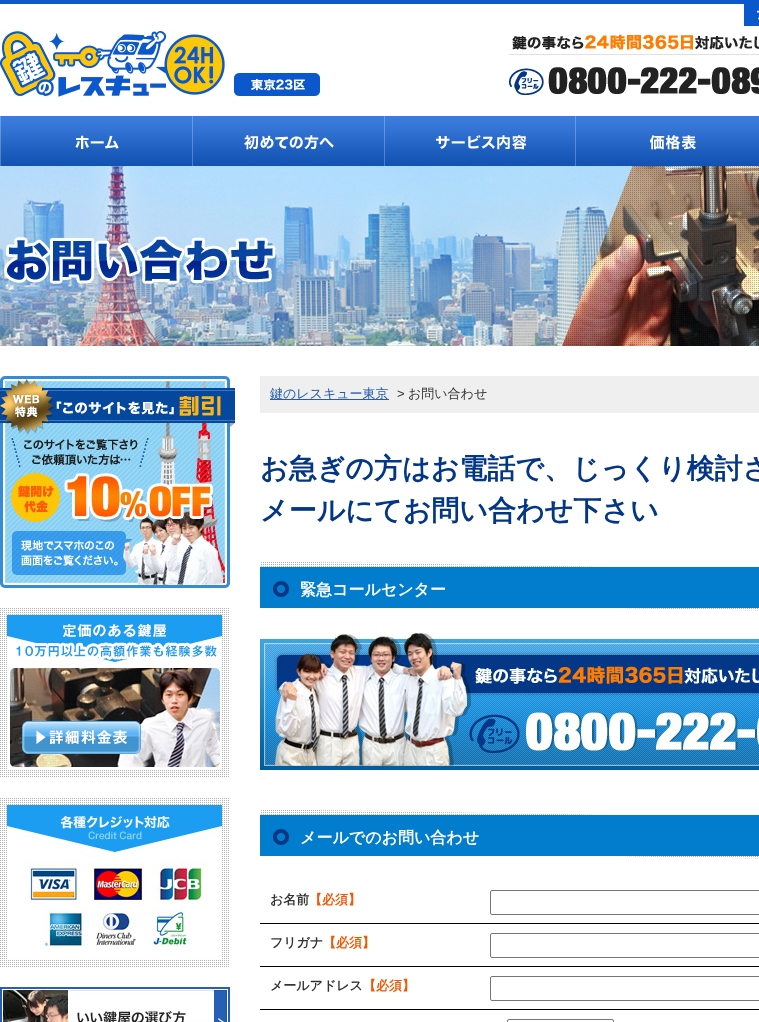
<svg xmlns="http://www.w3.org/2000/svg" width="759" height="1022">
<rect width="100%" height="100%" fill="#fff"/>
<rect width="759" height="4" fill="#0a58cc"/>
<image x="744" y="4" width="15" height="22" href="media/1.png"/>
<image x="0" y="31" width="320" height="66" href="media/2.png"/>
<image x="509" y="34" width="250" height="21" href="media/3.png"/>
<image x="509" y="67" width="250" height="28" href="media/4.png"/>
<image x="119" y="116" width="640" height="50" href="media/5.png"/>
<image x="0" y="116" width="119" height="50" href="media/6.png"/>
<image x="192" y="116" width="142" height="50" href="media/7.png"/>
<image x="384" y="116" width="192" height="50" href="media/8.png"/>
<image x="649" y="135" width="47" height="15" href="media/9.png"/>
<image x="0" y="166" width="759" height="180" href="media/10.png"/>
<image x="0" y="376" width="235" height="212" href="media/11.png"/>
<image x="0" y="608" width="229" height="169" href="media/12.png"/>
<image x="0" y="798" width="229" height="169" href="media/13.png"/>
<image x="0" y="987" width="230" height="35" href="media/14.png"/>
<rect x="260" y="376" width="499" height="37" fill="#efefef"/>
<rect x="270" y="399" width="119" height="1" fill="#255bae"/>
<text x="270" y="398" style="font-family:WenQuanYi Zen Hei;font-size:13px;font-weight:500;fill:#255bae">鍵のレスキュー東京</text>
<text x="397" y="398" style="font-family:Liberation Sans;font-size:13px;fill:#333">&gt;</text>
<text x="408" y="398" style="font-family:WenQuanYi Zen Hei;font-size:13px;font-weight:500;fill:#333">お問い合わせ</text>
<text x="260" y="478" style="font-family:WenQuanYi Zen Hei;font-size:28px;font-weight:bold;fill:#033786">お急ぎの方はお電話で、じっくり検討さ</text>
<text x="260" y="520" style="font-family:WenQuanYi Zen Hei;font-size:28px;font-weight:bold;fill:#033786">メールにてお問い合わせ下さい</text>
<image x="260" y="562" width="499" height="49" href="media/15.png"/>
<text x="300" y="595" style="font-family:WenQuanYi Zen Hei;font-size:16px;font-weight:bold;fill:#fff">緊急コールセンター</text>
<image x="260" y="633" width="499" height="137" href="media/16.png"/>
<image x="260" y="810" width="499" height="49" href="media/15.png"/>
<text x="300" y="843" style="font-family:WenQuanYi Zen Hei;font-size:16px;font-weight:bold;fill:#fff">メールでのお問い合わせ</text>
<rect x="260" y="923" width="499" height="1" fill="#000"/>
<rect x="490.5" y="890.5" width="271" height="24" rx="1.5" fill="none" stroke="#767676"/>
<text x="270" y="904" style="font-family:WenQuanYi Zen Hei;font-size:13px;font-weight:bold;fill:#333">お名前</text>
<text x="309" y="904" style="font-family:WenQuanYi Zen Hei;font-size:13px;font-weight:bold;fill:#f75502">【必須】</text>
<rect x="260" y="966" width="499" height="1" fill="#000"/>
<rect x="490.5" y="933.5" width="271" height="24" rx="1.5" fill="none" stroke="#767676"/>
<text x="270" y="947" style="font-family:WenQuanYi Zen Hei;font-size:13px;font-weight:bold;fill:#333">フリガナ</text>
<text x="323" y="947" style="font-family:WenQuanYi Zen Hei;font-size:13px;font-weight:bold;fill:#f75502">【必須】</text>
<rect x="260" y="1009" width="499" height="1" fill="#000"/>
<rect x="490.5" y="976.5" width="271" height="24" rx="1.5" fill="none" stroke="#767676"/>
<text x="270" y="990" style="font-family:WenQuanYi Zen Hei;font-size:13px;font-weight:bold;fill:#333">メールアドレス</text>
<text x="363" y="990" style="font-family:WenQuanYi Zen Hei;font-size:13px;font-weight:bold;fill:#f75502">【必須】</text>
<rect x="507.5" y="1019.5" width="106" height="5" rx="1.5" fill="none" stroke="#767676"/>
</svg>
